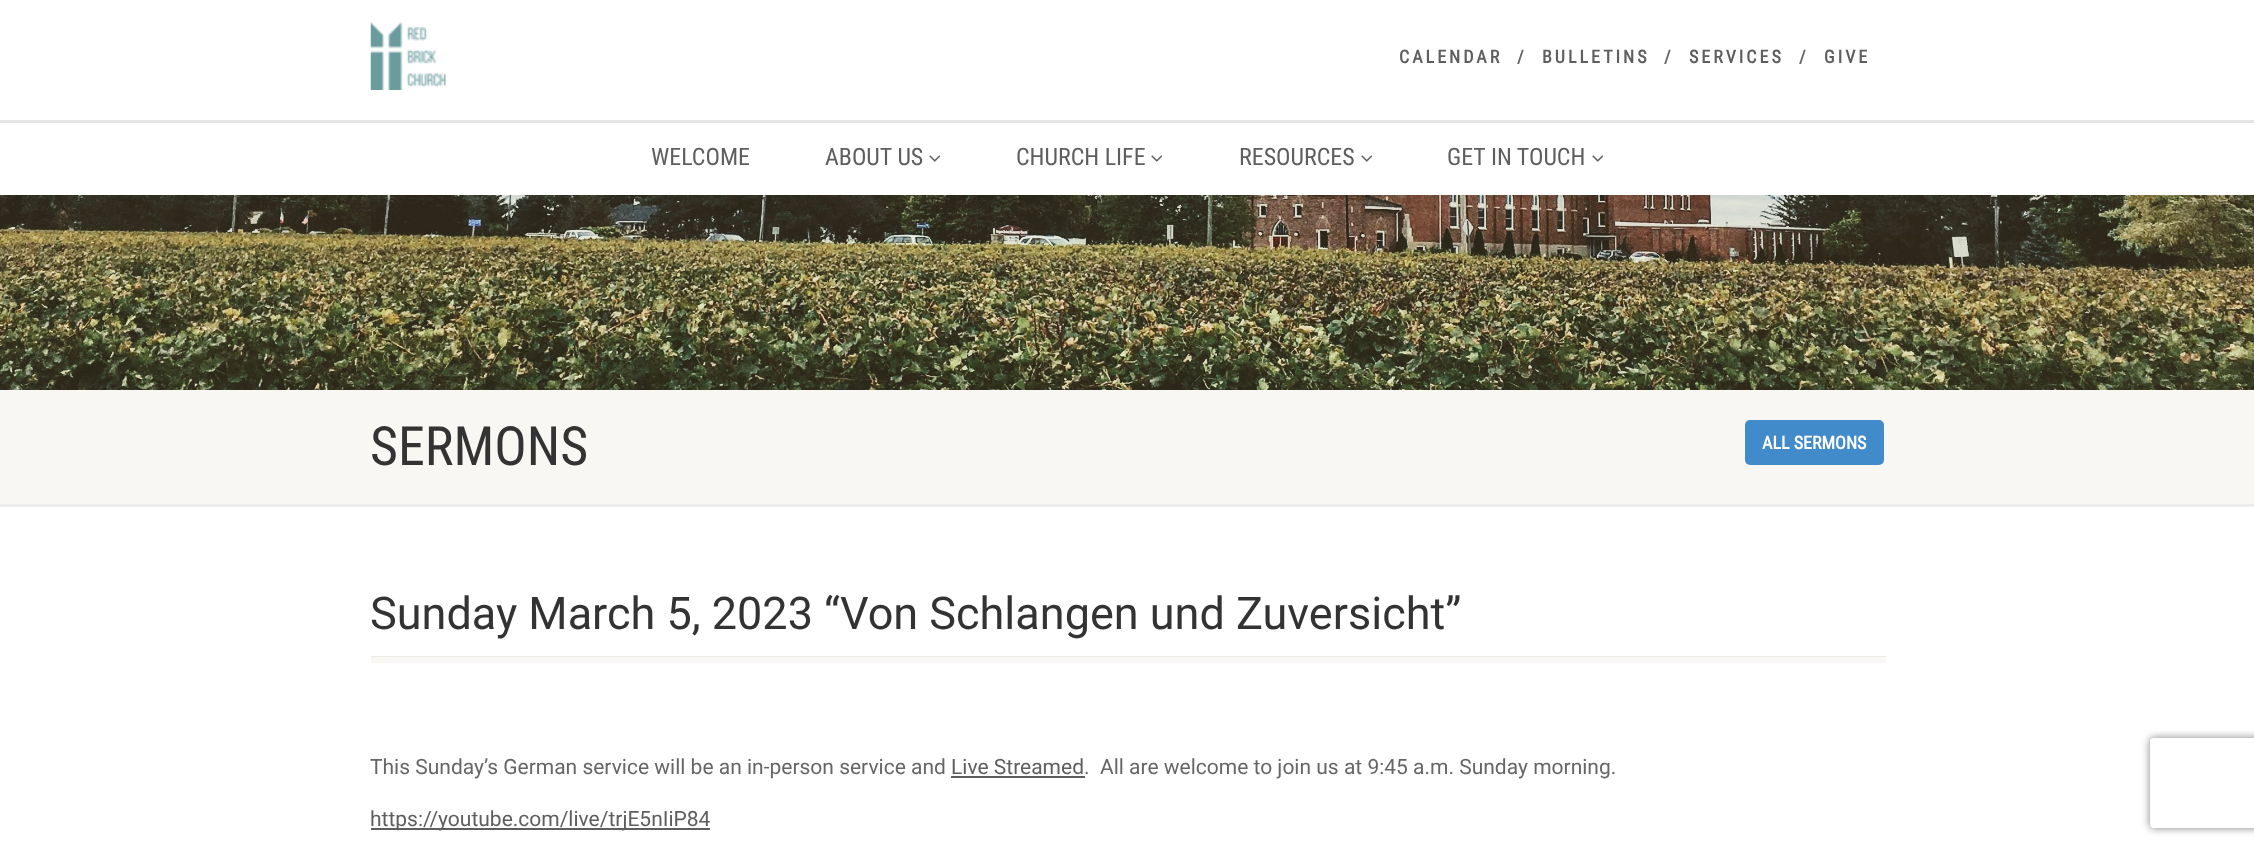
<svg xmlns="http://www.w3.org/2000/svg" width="2254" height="849">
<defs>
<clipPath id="clip1"><path d="M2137 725h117v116h-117zm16 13h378c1.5 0 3 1.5 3 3v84c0 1.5-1.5 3-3 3h-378c-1.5 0-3-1.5-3-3v-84c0-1.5 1.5-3 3-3z" clip-rule="evenodd"/></clipPath>
</defs>
<rect width="100%" height="100%" fill="#fff"/>
<path d="M0 120v3h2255v-120h-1v117z" fill="#e6e6e6"/>
<image x="370" y="22" width="76" height="68" href="media/1.png"/>
<text x="1399" y="63" style="font-family:Roboto Condensed;font-size:18px;font-weight:bold;letter-spacing:3px;fill:#5e5e5e">CALENDAR</text>
<text x="1517" y="63" style="font-family:Roboto Condensed;font-size:18px;font-weight:bold;letter-spacing:3px;fill:#666">/</text>
<text x="1542" y="63" style="font-family:Roboto Condensed;font-size:18px;font-weight:bold;letter-spacing:3px;fill:#5e5e5e">BULLETINS</text>
<text x="1664" y="63" style="font-family:Roboto Condensed;font-size:18px;font-weight:bold;letter-spacing:3px;fill:#666">/</text>
<text x="1689" y="63" style="font-family:Roboto Condensed;font-size:18px;font-weight:bold;letter-spacing:3px;fill:#5e5e5e">SERVICES</text>
<text x="1799" y="63" style="font-family:Roboto Condensed;font-size:18px;font-weight:bold;letter-spacing:3px;fill:#666">/</text>
<text x="1824" y="63" style="font-family:Roboto Condensed;font-size:18px;font-weight:bold;letter-spacing:3px;fill:#5e5e5e">GIVE</text>
<text x="651" y="165" style="font-family:Roboto Condensed;font-size:24px;fill:#5e5e5e">WELCOME</text>
<text x="825" y="165" style="font-family:Roboto Condensed;font-size:24px;fill:#5e5e5e">ABOUT US</text>
<image x="929" y="155" width="12" height="7" href="media/2.png"/>
<text x="1016" y="165" style="font-family:Roboto Condensed;font-size:24px;fill:#5e5e5e">CHURCH LIFE</text>
<image x="1151" y="155" width="12" height="7" href="media/2.png"/>
<text x="1239" y="165" style="font-family:Roboto Condensed;font-size:24px;fill:#5e5e5e">RESOURCES</text>
<image x="1361" y="155" width="12" height="7" href="media/2.png"/>
<text x="1447" y="165" style="font-family:Roboto Condensed;font-size:24px;fill:#5e5e5e">GET IN TOUCH</text>
<image x="1592" y="155" width="12" height="7" href="media/2.png"/>
<image x="0" y="195" width="2254" height="195" href="media/3.png"/>
<path d="M0 504v3h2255v-114h-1v111z" fill="#ededed"/>
<rect y="390" width="2254" height="114" fill="#f8f7f3"/>
<text x="370" y="465" style="font-family:Roboto Condensed;font-size:54px;fill:#333">SERMONS</text>
<rect x="1745" y="420" width="139" height="45" rx="5" fill="#428bca"/>
<text x="1762" y="449" style="font-family:Roboto Condensed;font-size:18px;font-weight:bold;fill:#fff">ALL SERMONS</text>
<rect x="371" y="656" width="1515" height="1" fill="#eceae4"/>
<text x="370" y="629" style="font-family:Roboto;font-size:45px;fill:#333">Sunday March 5, 2023 “Von Schlangen und Zuversicht”</text>
<rect x="371" y="657" width="1515" height="6" fill="#f8f7f3"/>
<text x="370" y="774" style="font-family:Roboto;font-size:21px;fill:#666">This Sunday’s German service will be an in-person service and</text>
<text x="951" y="774" style="font-family:Roboto;font-size:21px;fill:#5e5e5e">Live Streamed</text>
<rect x="951" y="776" width="134" height="2" fill="#5e5e5e"/>
<text x="1084" y="774" style="font-family:Roboto;font-size:21px;fill:#666" xml:space="preserve">.  All are welcome to join us at 9:45 a.m. Sunday morning.</text>
<rect x="371" y="828" width="339" height="2" fill="#5e5e5e"/>
<text x="370" y="826" style="font-family:Roboto;font-size:21px;fill:#5e5e5e">https://youtube.com/live/trjE5nIiP84</text>
<g clip-path="url(#clip1)">
<rect x="2150" y="738" width="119" height="90" rx="3" fill="#808080" filter="blur(4px)"/>
</g>
</svg>
